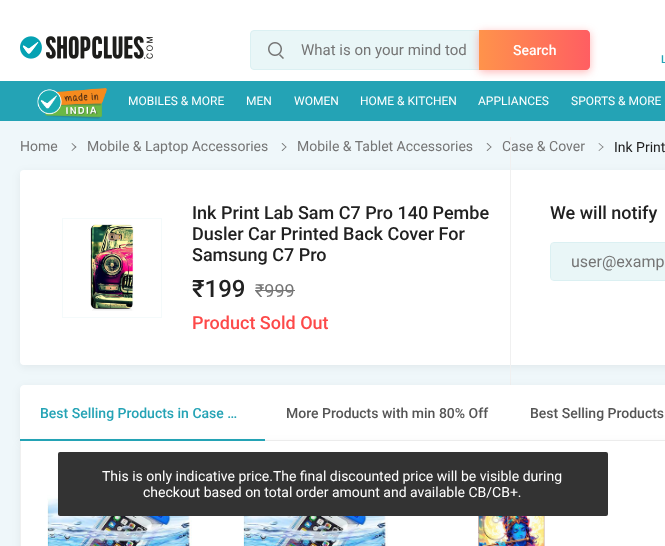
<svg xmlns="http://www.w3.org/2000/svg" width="665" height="546">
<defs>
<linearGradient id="g1" gradientUnits="userSpaceOnUse" x1="479" y1="50" x2="590" y2="50"><stop offset="0" stop-color="#ff934b"/><stop offset="1" stop-color="#ff5e62"/></linearGradient>
</defs>
<rect width="100%" height="100%" fill="#eff7fa"/>
<rect width="665" height="81" fill="#fff"/>
<image x="20" y="36" width="133" height="23" href="media/1.png"/>
<rect x="250.5" y="30.5" width="339" height="39" rx="3.5" fill="#e9f6f7" stroke="#dbf0f2"/>
<image x="268" y="42" width="16" height="17" href="media/2.png"/>
<text x="301" y="55" style="font-family:Roboto;font-size:15px;fill:#757575">What is on your mind tod</text>
<rect y="81" width="665" height="40" fill="#24a3b5"/>
<rect x="479" y="32" width="111" height="40" rx="4" fill="#ff616275" filter="blur(4px)"/>
<path d="M479 30h107c2 0 4 2 4 4v32c0 2-2 4-4 4h-107z" fill="url(#g1)"/>
<text x="513" y="55" style="font-family:Roboto;font-size:14px;font-weight:500;fill:#fff">Search</text>
<text x="661" y="63" style="font-family:Roboto;font-size:11px;font-weight:500;fill:#24a3b5">L</text>
<image x="37" y="88" width="70" height="31" href="media/3.png"/>
<text x="128" y="105" style="font-family:Roboto;font-size:12px;fill:#fff">MOBILES &amp; MORE</text>
<text x="246" y="105" style="font-family:Roboto;font-size:12px;fill:#fff">MEN</text>
<text x="294" y="105" style="font-family:Roboto;font-size:12px;fill:#fff">WOMEN</text>
<text x="360" y="105" style="font-family:Roboto;font-size:12px;fill:#fff">HOME &amp; KITCHEN</text>
<text x="478" y="105" style="font-family:Roboto;font-size:12px;fill:#fff">APPLIANCES</text>
<text x="571" y="105" style="font-family:Roboto;font-size:12px;fill:#fff">SPORTS &amp; MORE</text>
<text x="20" y="151" style="font-family:Roboto;font-size:14px;fill:#757575">Home</text>
<path d="M71.5 143.5l.5-.5l4.5 4l-1 .5z" fill="#757575"/>
<path d="M71.5 150.5l4-4l1 .5l-4.5 4z" fill="#757575"/>
<text x="87" y="151" style="font-family:Roboto;font-size:14px;fill:#757575">Mobile &amp; Laptop Accessories</text>
<path d="M281.5 143.5l1-.5l4 4l-.5 .5z" fill="#757575"/>
<path d="M281.5 150.5l4.5-4l.5 .5l-4 4z" fill="#757575"/>
<text x="297" y="151" style="font-family:Roboto;font-size:14px;fill:#757575">Mobile &amp; Tablet Accessories</text>
<path d="M486.5 143.5l1-.5l4 4l-.5 .5z" fill="#757575"/>
<path d="M486.5 150.5l4.5-4l.5 .5l-4 4z" fill="#757575"/>
<text x="502" y="151" style="font-family:Roboto;font-size:14px;fill:#757575">Case &amp; Cover</text>
<path d="M598.5 143.5l.5-.5l4.5 4l-.5 .5z" fill="#757575"/>
<path d="M598.5 150.5l4.5-4l.5 .5l-4.5 4z" fill="#757575"/>
<text x="614" y="152" style="font-family:Roboto;font-size:14px;fill:#212121">Ink Print</text>
<rect x="20" y="172" width="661" height="195" rx="4" fill="#0000000f" filter="blur(4px)"/>
<rect x="20" y="170" width="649" height="195" rx="4" fill="#fff"/>
<rect x="62.5" y="218.5" width="99" height="99" fill="none" stroke="#f4fafb"/>
<image x="90" y="224" width="44" height="87" href="media/4.png"/>
<text x="192" y="219" style="font-family:Roboto;font-size:18px;font-weight:500;fill:#212121">Ink Print Lab Sam C7 Pro 140 Pembe</text>
<text x="192" y="240" style="font-family:Roboto;font-size:18px;font-weight:500;fill:#212121">Dusler Car Printed Back Cover For</text>
<text x="192" y="261" style="font-family:Roboto;font-size:18px;font-weight:500;fill:#212121">Samsung C7 Pro</text>
<text x="192" y="297" style="font-family:Roboto;font-size:24px;font-weight:500;fill:#212121">₹199</text>
<text x="255" y="297" style="font-family:Roboto;font-size:18px;fill:#757575">₹999</text>
<rect x="255" y="290" width="40" height="1" fill="#757575"/>
<text x="192" y="329" style="font-family:Roboto;font-size:18px;font-weight:500;fill:#fd4949">Product Sold Out</text>
<rect x="510" y="137" width="1" height="248" fill="#f0f0f0"/>
<text x="550" y="219" style="font-family:Roboto;font-size:18px;font-weight:500;fill:#212121">We will notify</text>
<rect x="551" y="243" width="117" height="37" rx="3" fill="#e9f6f7"/>
<rect x="550.5" y="242.5" width="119" height="38" rx="3.5" fill="none" stroke="#dbf0f2"/>
<text x="571" y="267" style="font-family:Roboto;font-size:16px;fill:#757575">user@examp</text>
<rect x="20" y="387" width="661" height="56" rx="4" fill="#0000000f" filter="blur(4px)"/>
<path d="M24 385h641c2 0 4 2 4 4v52h-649v-52c0-2 2-4 4-4z" fill="#fff"/>
<text x="40" y="418" style="font-family:Roboto;font-size:14px;font-weight:500;fill:#24a3b5">Best Selling Products in Case …</text>
<rect x="265" y="440" width="400" height="1" fill="#f0f0f0"/>
<rect x="20" y="443" width="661" height="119" rx="4" fill="#0000000f" filter="blur(4px)"/>
<rect x="20" y="439" width="245" height="2" fill="#24a3b5"/>
<text x="286" y="418" style="font-family:Roboto;font-size:14px;font-weight:500;fill:#555">More Products with min 80% Off</text>
<text x="530" y="418" style="font-family:Roboto;font-size:14px;font-weight:500;fill:#555">Best Selling Products</text>
<rect x="21" y="441" width="644" height="105" fill="#fff"/>
<path d="M20 441h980v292c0 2-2 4-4 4h-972c-2 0-4-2-4-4zm1 0h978v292c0 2-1 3-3 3h-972c-2 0-3-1-3-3z" fill="#f0f0f0" fill-rule="evenodd"/>
<image x="47" y="477" width="145" height="69" href="media/5.png"/>
<image x="243" y="516" width="145" height="30" href="media/6.png"/>
<image x="478" y="516" width="67" height="30" href="media/7.png"/>
<rect x="58" y="452" width="550" height="64" rx="2" fill="#333"/>
<text x="102" y="481" style="font-family:Roboto;font-size:14px;fill:#fff">This is only indicative price.The final discounted price will be visible during</text>
<text x="143" y="497" style="font-family:Roboto;font-size:14px;fill:#fff">checkout based on total order amount and available CB/CB+.</text>
</svg>
